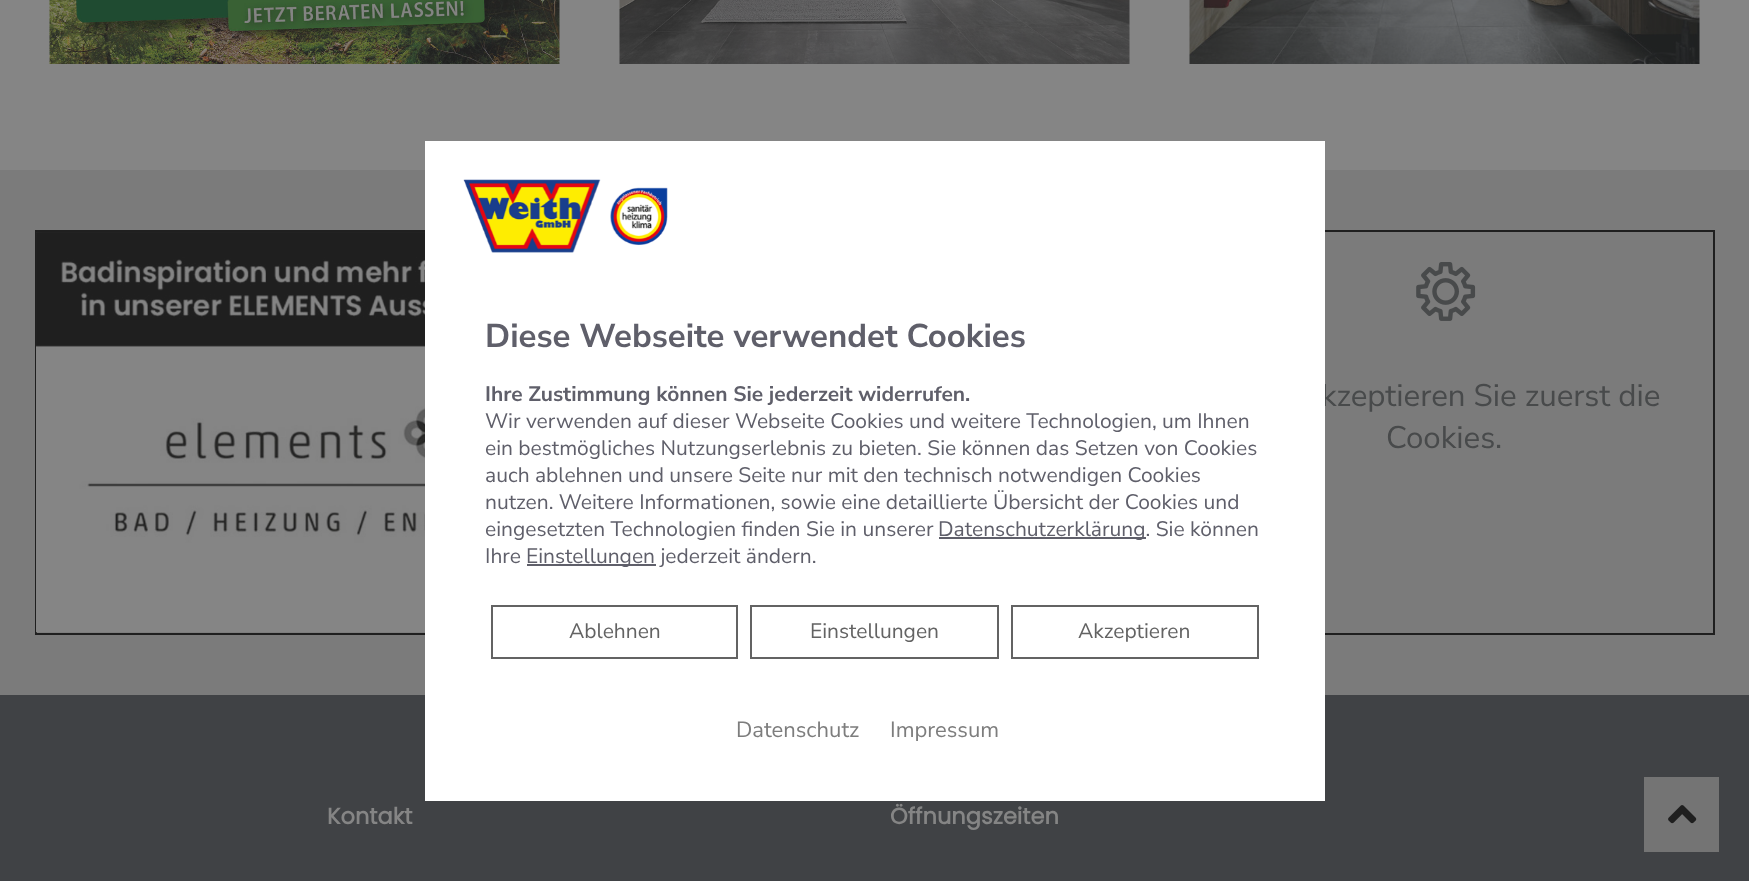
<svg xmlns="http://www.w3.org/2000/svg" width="1749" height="881">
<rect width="100%" height="100%" fill="#858585"/>
<rect y="170" width="1749" height="525" fill="#7b7b7b"/>
<rect x="36" y="231" width="538" height="403" fill="none" stroke="#1f1f1f" stroke-width="2"/>
<rect x="1176" y="231" width="538" height="403" fill="none" stroke="#1f1f1f" stroke-width="2"/>
<text x="1321" y="406" style="font-family:Nunito Sans;font-size:31.25px;fill:#484a4b">kzeptieren Sie zuerst die</text>
<rect y="695" width="1749" height="186" fill="#404245"/>
<rect x="425" y="141" width="900" height="660" fill="#fff"/>
<image x="463" y="179" width="205" height="74" href="media/1.png"/>
<text x="485" y="347" style="font-family:Nunito Sans;font-size:33px;font-weight:bold;fill:#5f5f6a">Diese Webseite verwendet Cookies</text>
<text x="485" y="401" style="font-family:Nunito Sans;font-size:21px;font-weight:bold;fill:#5f5f6a">Ihre Zustimmung können Sie jederzeit widerrufen.</text>
<text x="485" y="428" style="font-family:Nunito Sans;font-size:21px;fill:#5f5f6a">Wir verwenden auf dieser Webseite Cookies und weitere Technologien, um Ihnen</text>
<text x="485" y="455" style="font-family:Nunito Sans;font-size:21px;fill:#5f5f6a">ein bestmögliches Nutzungserlebnis zu bieten. Sie können das Setzen von Cookies</text>
<text x="485" y="482" style="font-family:Nunito Sans;font-size:21px;fill:#5f5f6a">auch ablehnen und unsere Seite nur mit den technisch notwendigen Cookies</text>
<text x="485" y="509" style="font-family:Nunito Sans;font-size:21px;fill:#5f5f6a">nutzen. Weitere Informationen, sowie eine detaillierte Übersicht der Cookies und</text>
<text x="485" y="536" style="font-family:Nunito Sans;font-size:21px;fill:#5f5f6a">eingesetzten Technologien finden Sie in unserer</text>
<rect x="939" y="537" width="207" height="2" fill="#5f5f6a"/>
<text x="938" y="536" style="font-family:Nunito Sans;font-size:21px;fill:#5f5f6a">Datenschutzerklärung. Sie können</text>
<text x="485" y="563" style="font-family:Nunito Sans;font-size:21px;fill:#5f5f6a">Ihre</text>
<rect x="527" y="564" width="129" height="2" fill="#5f5f6a"/>
<text x="526" y="563" style="font-family:Nunito Sans;font-size:21px;fill:#5f5f6a">Einstellungen jederzeit ändern.</text>
<rect x="492" y="606" width="245" height="52" fill="none" stroke="#636363" stroke-width="2"/>
<text x="569" y="638" style="font-family:Nunito Sans;font-size:21px;fill:#636363">Ablehnen</text>
<rect x="751" y="606" width="247" height="52" fill="none" stroke="#636363" stroke-width="2"/>
<text x="810" y="638" style="font-family:Nunito Sans;font-size:21px;fill:#636363">Einstellungen</text>
<rect x="1012" y="606" width="246" height="52" fill="none" stroke="#636363" stroke-width="2"/>
<text x="1078" y="638" style="font-family:Nunito Sans;font-size:21px;fill:#636363">Akzeptieren</text>
<text x="736" y="737" style="font-family:Nunito Sans;font-size:22px;fill:#7d7d7d">Datenschutz</text>
<text x="890" y="737" style="font-family:Nunito Sans;font-size:22px;fill:#7d7d7d">Impressum</text>
<image x="49" y="0" width="511" height="64" href="media/2.png"/>
<image x="619" y="0" width="511" height="64" href="media/3.png"/>
<image x="1189" y="0" width="511" height="64" href="media/4.png"/>
<image x="36" y="232" width="389" height="401" href="media/5.png"/>
<image x="1416" y="262" width="60" height="59" href="media/6.png"/>
<text x="1386" y="448" style="font-family:Nunito Sans;font-size:31.25px;fill:#484a4b">Cookies.</text>
<text x="327" y="824" style="font-family:Poppins;font-size:22.5px;font-weight:bold;fill:#858585">Kontakt</text>
<text x="890" y="824" style="font-family:Poppins;font-size:22.5px;font-weight:bold;fill:#858585">Öffnungszeiten</text>
<rect x="1644" y="777" width="75" height="75" fill="#747474"/>
<image x="1668" y="805" width="29" height="19" href="media/7.png"/>
</svg>
